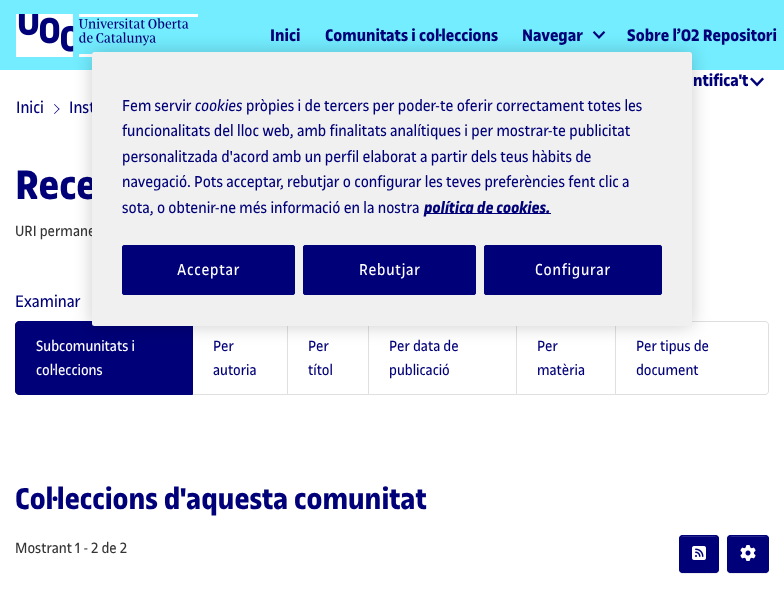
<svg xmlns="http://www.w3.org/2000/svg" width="784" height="589">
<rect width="100%" height="100%" fill="#fff"/>
<rect width="784" height="70" fill="#73edff"/>
<image x="16" y="14" width="182" height="43" href="media/1.png"/>
<text x="270" y="41" style="font-family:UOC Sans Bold;font-size:18px;font-weight:bold;fill:#000078">Inici</text>
<text x="325" y="41" style="font-family:UOC Sans Bold;font-size:18px;font-weight:bold;fill:#000078">Comunitats i col·leccions</text>
<text x="522" y="41" style="font-family:UOC Sans Bold;font-size:18px;font-weight:bold;fill:#000078">Navegar</text>
<image x="592" y="31" width="14" height="8" href="media/2.png"/>
<text x="627" y="41" style="font-family:UOC Sans Bold;font-size:18px;font-weight:bold;fill:#000078">Sobre l’O2 Repositori</text>
<text x="693" y="86" style="font-family:UOC Sans Bold;font-size:18px;font-weight:bold;fill:#000078">ntifica't</text>
<image x="750" y="77" width="14" height="10" href="media/3.png"/>
<text x="16" y="113" style="font-family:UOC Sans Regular;font-size:18px;fill:#000078">Inici</text>
<path d="M54 104.5l.5-.5l5 5l-.5 .5z" fill="#000078"/>
<path d="M54 113.5l5-5l.5 .5l-5 5z" fill="#000078"/>
<text x="69" y="113" style="font-family:UOC Sans Regular;font-size:18px;fill:#000078">Inst</text>
<text x="15" y="199" style="font-family:UOC Sans Bold;font-size:44px;font-weight:bold;fill:#000078">Rece</text>
<text x="15" y="236" style="font-family:UOC Sans Regular;font-size:16px;fill:#353535">URI permane</text>
<text x="15" y="307" style="font-family:UOC Sans Regular;font-size:18px;fill:#000078">Examinar</text>
<path d="M19 321.5h173.5v73h-173.5c-2 0-3.5-1.5-3.5-3.5v-66c0-2 1.5-3.5 3.5-3.5z" fill="#000078" stroke="#000078"/>
<text x="36" y="351" style="font-family:UOC Sans Regular;font-size:16px;fill:#fff">Subcomunitats i</text>
<text x="36" y="375" style="font-family:UOC Sans Regular;font-size:16px;fill:#fff">col·leccions</text>
<path d="M288 321v74l-1-1v-72z" fill="#0000001f"/>
<path d="M288 395h-95v-1h94z" fill="#0000001f"/>
<text x="213" y="351" style="font-family:UOC Sans Regular;font-size:16px;fill:#000078">Per</text>
<text x="213" y="375" style="font-family:UOC Sans Regular;font-size:16px;fill:#000078">autoria</text>
<path d="M369 321v74l-1-1v-72z" fill="#0000001f"/>
<path d="M369 395h-81v-1h80z" fill="#0000001f"/>
<text x="308" y="351" style="font-family:UOC Sans Regular;font-size:16px;fill:#000078">Per</text>
<text x="308" y="375" style="font-family:UOC Sans Regular;font-size:16px;fill:#000078">títol</text>
<path d="M517 321v74l-1-1v-72z" fill="#0000001f"/>
<path d="M517 395h-148v-1h147z" fill="#0000001f"/>
<text x="389" y="351" style="font-family:UOC Sans Regular;font-size:16px;fill:#000078">Per data de</text>
<text x="389" y="375" style="font-family:UOC Sans Regular;font-size:16px;fill:#000078">publicació</text>
<path d="M616 321v74l-1-1v-72z" fill="#0000001f"/>
<path d="M616 395h-99v-1h98z" fill="#0000001f"/>
<text x="537" y="351" style="font-family:UOC Sans Regular;font-size:16px;fill:#000078">Per</text>
<text x="537" y="375" style="font-family:UOC Sans Regular;font-size:16px;fill:#000078">matèria</text>
<path d="M616 321h149c2 0 4 2 4 4v66c0 2-2 4-4 4h-149zm0 1h149c2 0 3 1 3 3v66c0 2-1 3-3 3h-149z" fill="#dfdfdf" fill-rule="evenodd"/>
<text x="636" y="351" style="font-family:UOC Sans Regular;font-size:16px;fill:#000078">Per tipus de</text>
<text x="636" y="375" style="font-family:UOC Sans Regular;font-size:16px;fill:#000078">document</text>
<text x="15" y="509" style="font-family:UOC Sans Bold;font-size:32px;font-weight:bold;fill:#000078">Col·leccions d'aquesta comunitat</text>
<text x="15" y="553" style="font-family:UOC Sans Regular;font-size:16px;fill:#353535">Mostrant 1 - 2 de 2</text>
<rect x="679" y="536" width="40" height="38" rx="4" fill="#00000012" filter="blur(0.5px)"/>
<rect x="679" y="535" width="40" height="38" rx="4" fill="#000078"/>
<path d="M683 537h32c2 0 3 1 3 3c0-5-4-4-8.5-4h-21c-4.5 0-8.5-1-8.5 4c0-2 1-3 3-3z" fill="#26268c"/>
<rect x="679.5" y="535.5" width="39" height="37" rx="3.5" fill="none" stroke="#000078"/>
<image x="692" y="546" width="14" height="14" href="media/4.png"/>
<rect x="727" y="536" width="42" height="38" rx="4" fill="#00000012" filter="blur(0.5px)"/>
<rect x="727" y="535" width="42" height="38" rx="4" fill="#000078"/>
<path d="M731 537h34c2 0 3 1 3 3c0-5-5-4-9-4h-22c-4 0-9-1-9 4c0-2 1-3 3-3z" fill="#26268c"/>
<rect x="727.5" y="535.5" width="41" height="37" rx="3.5" fill="none" stroke="#000078"/>
<image x="740" y="545" width="16" height="16" href="media/5.png"/>
<rect x="92" y="52" width="600" height="274" rx="2.5" fill="#00000033" filter="blur(9px)"/>
<rect x="92" y="52" width="600" height="274" rx="2.5" fill="#f0f0f0"/>
<text x="122" y="111" style="font-family:UOC Sans Regular;font-size:17px;fill:#000078">Fem servir</text>
<text x="195" y="111" style="font-family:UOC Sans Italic;font-size:17px;font-style:italic;fill:#000078">cookies</text>
<text x="246" y="111" style="font-family:UOC Sans Regular;font-size:17px;fill:#000078">pròpies i de tercers per poder-te oferir correctament totes les</text>
<text x="122" y="136" style="font-family:UOC Sans Regular;font-size:17px;fill:#000078">funcionalitats del lloc web, amb finalitats analítiques i per mostrar-te publicitat</text>
<text x="122" y="162" style="font-family:UOC Sans Regular;font-size:17px;fill:#000078">personalitzada d'acord amb un perfil elaborat a partir dels teus hàbits de</text>
<text x="122" y="187" style="font-family:UOC Sans Regular;font-size:17px;fill:#000078">navegació. Pots acceptar, rebutjar o configurar les teves preferències fent clic a</text>
<text x="122" y="213" style="font-family:UOC Sans Regular;font-size:17px;fill:#000078">sota, o obtenir-ne més informació en la nostra</text>
<rect x="424" y="213" width="127" height="1" fill="#000078"/>
<text x="424" y="213" style="font-family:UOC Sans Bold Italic;font-size:17px;font-weight:bold;font-style:italic;fill:#000078">política de cookies.</text>
<rect x="122.5" y="245.5" width="172" height="49" rx="1.5" fill="#000078" stroke="#000078"/>
<text x="177" y="275" style="font-family:UOC Sans Regular;font-size:17px;letter-spacing:0.75px;fill:#fff">Acceptar</text>
<rect x="303.5" y="245.5" width="172" height="49" rx="1.5" fill="#000078" stroke="#000078"/>
<text x="359" y="275" style="font-family:UOC Sans Regular;font-size:17px;letter-spacing:0.75px;fill:#fff">Rebutjar</text>
<rect x="484.5" y="245.5" width="177" height="49" rx="1.5" fill="#000078" stroke="#000078"/>
<text x="535" y="275" style="font-family:UOC Sans Regular;font-size:17px;letter-spacing:0.75px;fill:#fff">Configurar</text>
</svg>
